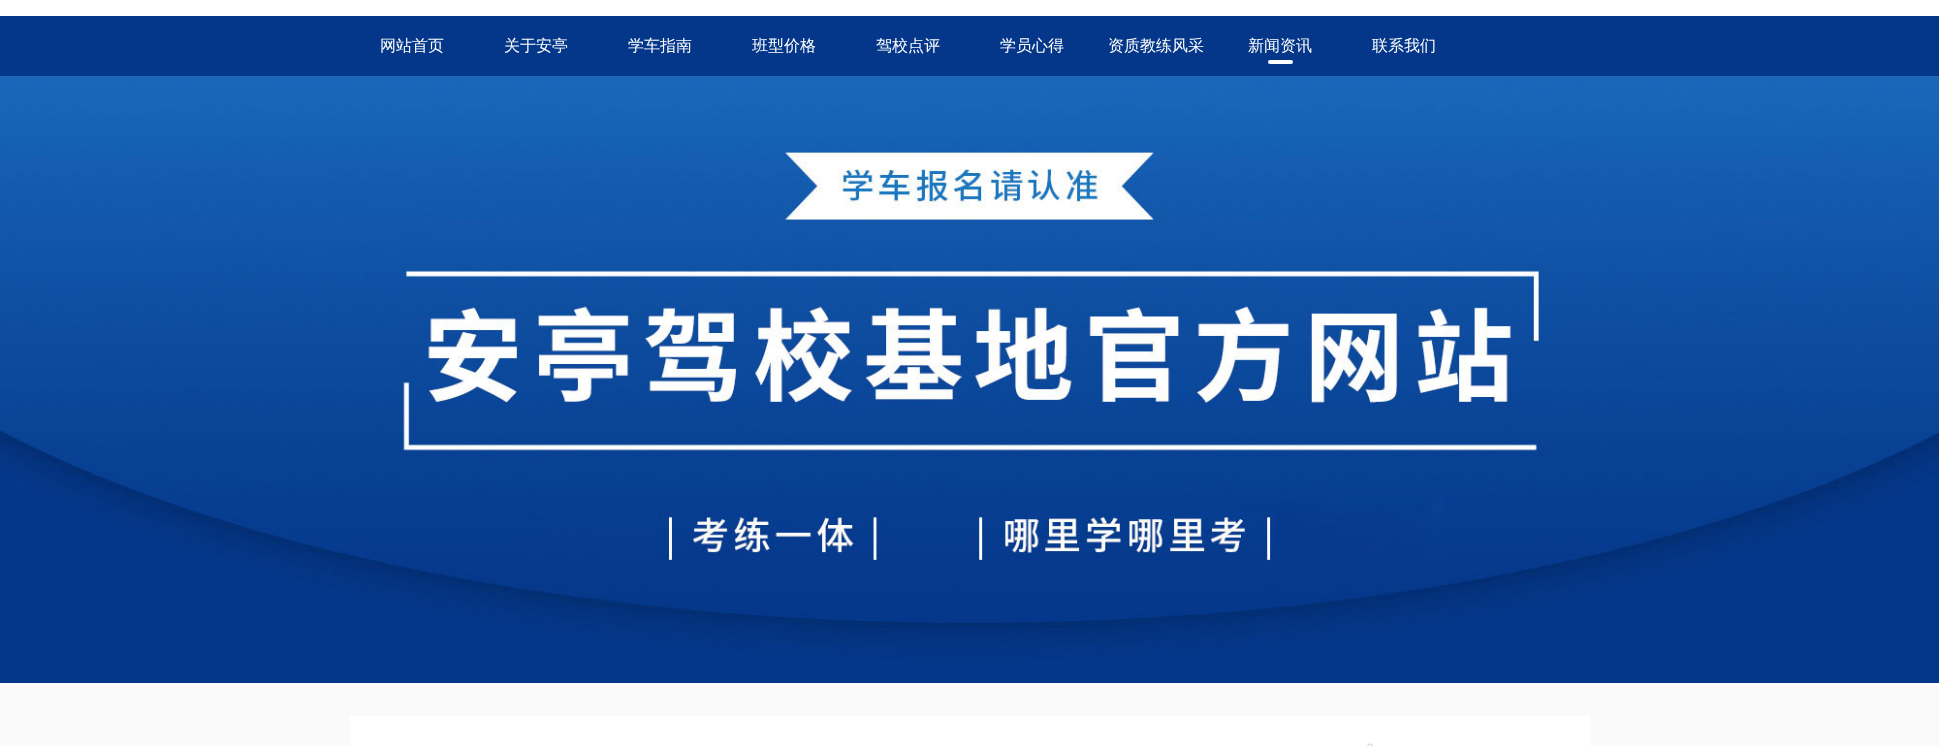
<svg xmlns="http://www.w3.org/2000/svg" width="1939" height="746">
<rect width="100%" height="100%" fill="#fff"/>
<rect y="16" width="1939" height="60" fill="#043789"/>
<text x="380" y="51" style="font-family:WenQuanYi Zen Hei;font-size:16px;font-weight:500;fill:#fff">网站首页</text>
<text x="504" y="51" style="font-family:WenQuanYi Zen Hei;font-size:16px;font-weight:500;fill:#fff">关于安亭</text>
<text x="628" y="51" style="font-family:WenQuanYi Zen Hei;font-size:16px;font-weight:500;fill:#fff">学车指南</text>
<text x="752" y="51" style="font-family:WenQuanYi Zen Hei;font-size:16px;font-weight:500;fill:#fff">班型价格</text>
<text x="876" y="51" style="font-family:WenQuanYi Zen Hei;font-size:16px;font-weight:500;fill:#fff">驾校点评</text>
<text x="1000" y="51" style="font-family:WenQuanYi Zen Hei;font-size:16px;font-weight:500;fill:#fff">学员心得</text>
<text x="1108" y="51" style="font-family:WenQuanYi Zen Hei;font-size:16px;font-weight:500;fill:#fff">资质教练风采</text>
<text x="1248" y="51" style="font-family:WenQuanYi Zen Hei;font-size:16px;font-weight:500;fill:#fff">新闻资讯</text>
<rect x="1268" y="60" width="25" height="4" rx="2" fill="#fff"/>
<text x="1372" y="51" style="font-family:WenQuanYi Zen Hei;font-size:16px;font-weight:500;fill:#fff">联系我们</text>
<image x="0" y="76" width="1939" height="607" href="media/1.png"/>
<rect y="686" width="1939" height="60" fill="#fafafa"/>
<rect x="350" y="716" width="1240" height="30" fill="#fff"/>
<image x="1367" y="743" width="6" height="3" href="media/2.png"/>
</svg>
